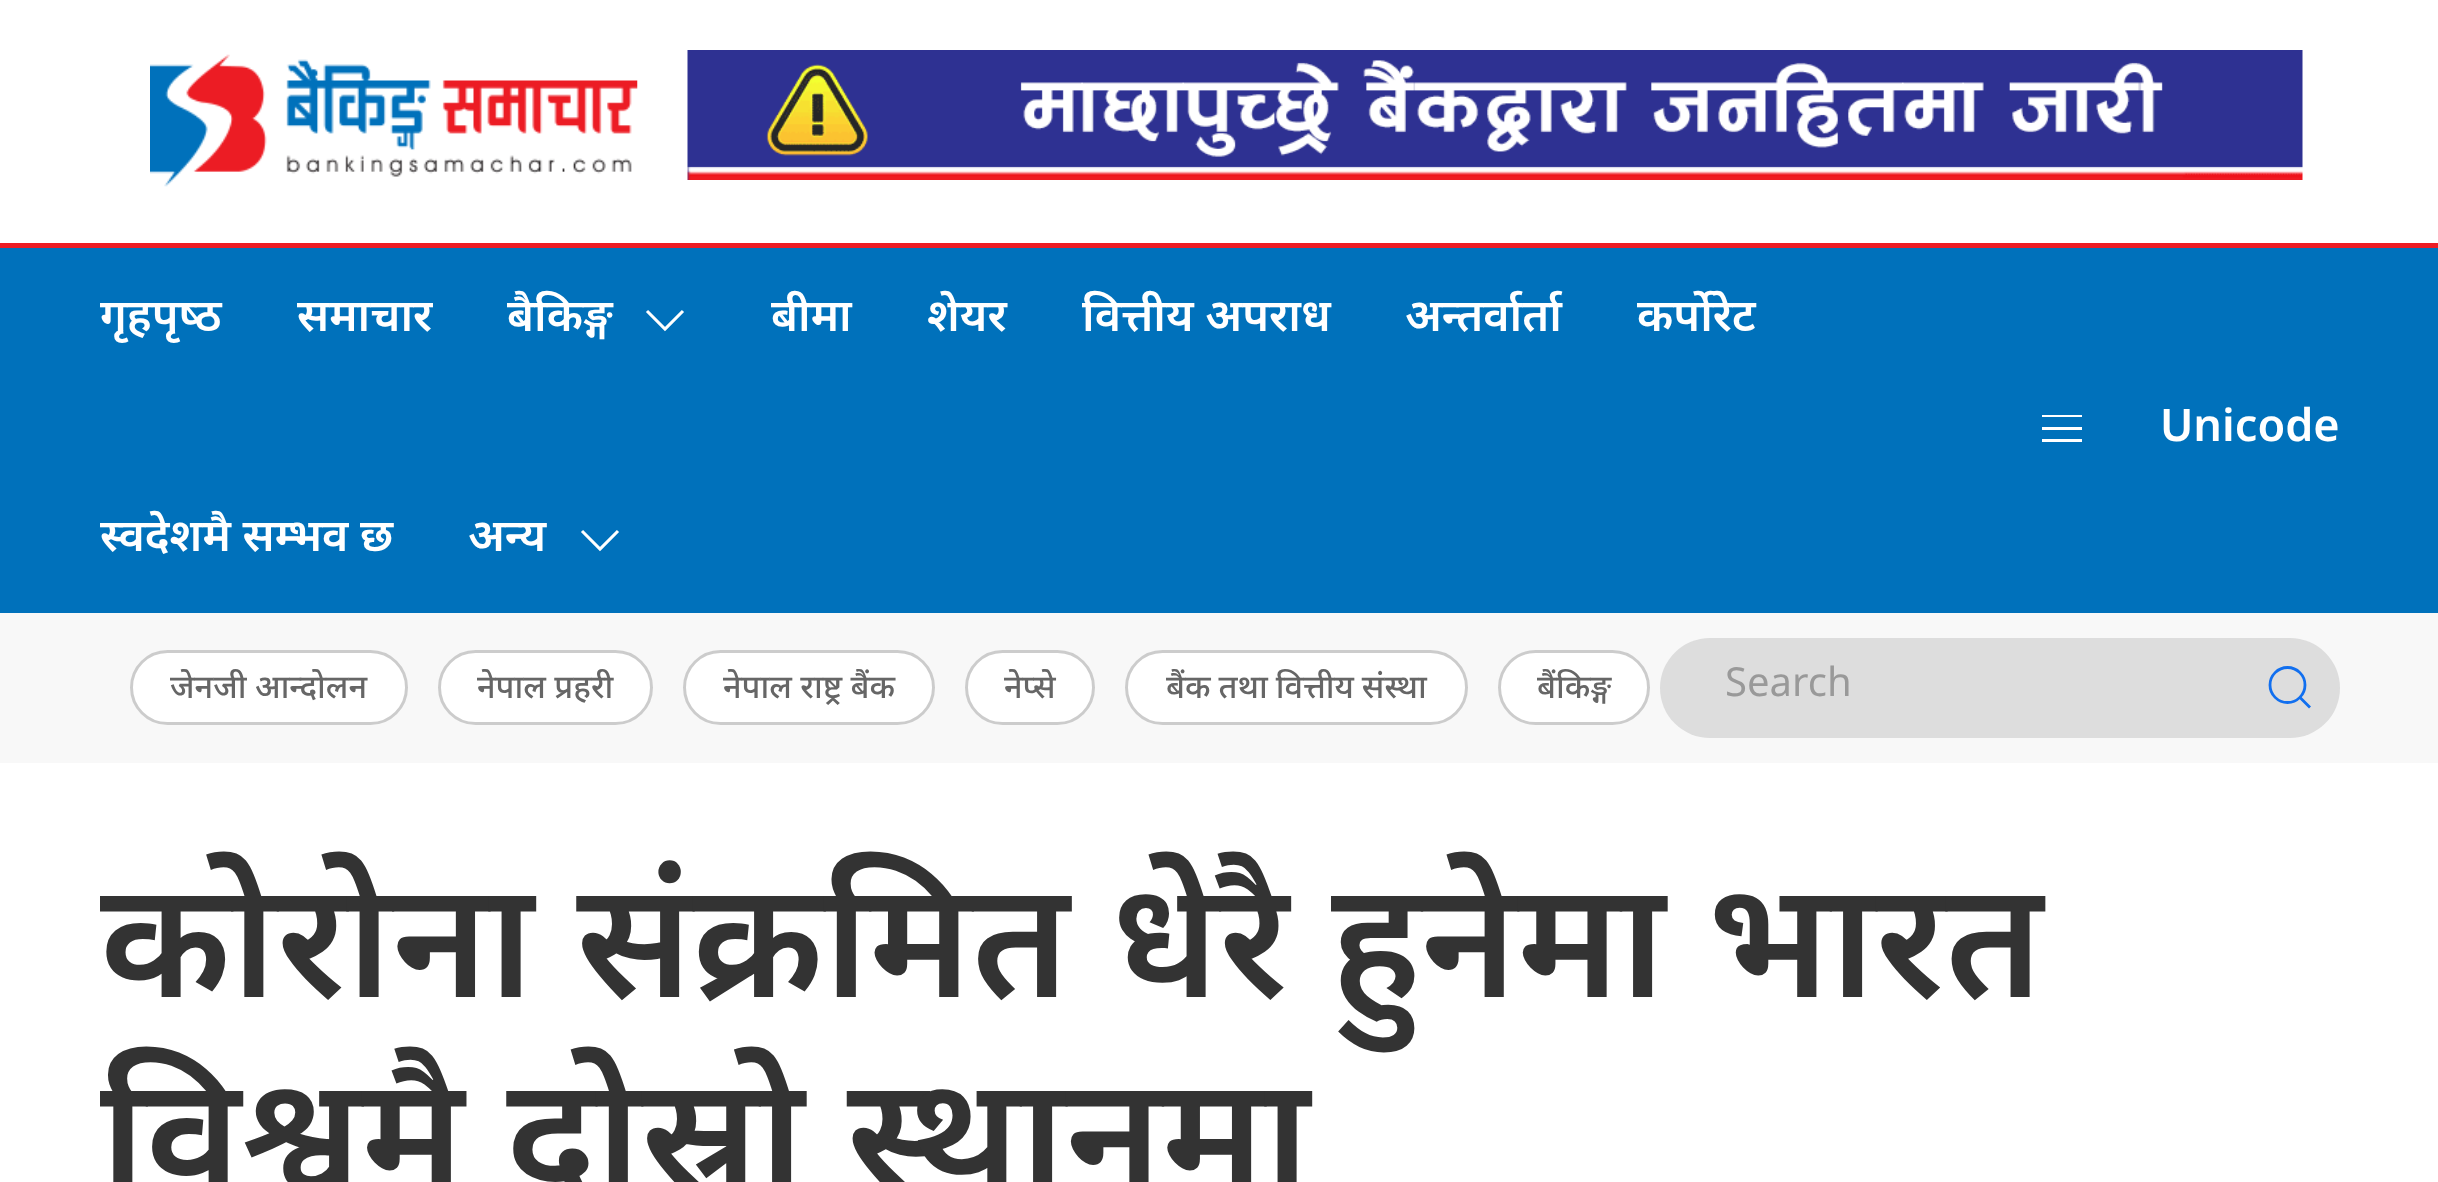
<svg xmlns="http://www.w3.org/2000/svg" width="2438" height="1182">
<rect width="100%" height="100%" fill="#fff"/>
<image x="150" y="54" width="488" height="133" href="media/1.png"/>
<image x="687" y="50" width="1616" height="130" href="media/2.png"/>
<rect y="248" width="2438" height="365" fill="#0071bb"/>
<rect y="243" width="2438" height="5" fill="#ec1c24"/>
<text x="100" y="331" style="font-family:Noto Sans Devanagari;font-size:45px;font-weight:600;fill:#fff">गृहपृष्‍ठ</text>
<text x="297" y="331" style="font-family:Noto Sans Devanagari;font-size:45px;font-weight:600;fill:#fff">समाचार</text>
<text x="507" y="331" style="font-family:Noto Sans Devanagari;font-size:45px;font-weight:600;fill:#fff">बैकिङ्ग</text>
<path d="M683 311l-18 18l-18-18" fill="none" stroke="#fff" stroke-width="3.1"/>
<text x="771" y="331" style="font-family:Noto Sans Devanagari;font-size:45px;font-weight:600;fill:#fff">बीमा</text>
<text x="927" y="331" style="font-family:Noto Sans Devanagari;font-size:45px;font-weight:600;fill:#fff">शेयर</text>
<text x="1082" y="331" style="font-family:Noto Sans Devanagari;font-size:45px;font-weight:600;fill:#fff">वित्तीय अपराध</text>
<text x="1405" y="331" style="font-family:Noto Sans Devanagari;font-size:45px;font-weight:600;fill:#fff">अन्तर्वार्ता</text>
<text x="1637" y="331" style="font-family:Noto Sans Devanagari;font-size:45px;font-weight:600;fill:#fff">कर्पोरेट</text>
<text x="100" y="551" style="font-family:Noto Sans Devanagari;font-size:45px;font-weight:600;fill:#fff">स्वदेशमै सम्भव छ</text>
<text x="468" y="551" style="font-family:Noto Sans Devanagari;font-size:45px;font-weight:600;fill:#fff">अन्य</text>
<path d="M618 531l-18 18l-18-18" fill="none" stroke="#fff" stroke-width="3.1"/>
<rect x="2042" y="415" width="40" height="2" fill="#fff"/>
<rect x="2042" y="427" width="40" height="3" fill="#fff"/>
<rect x="2042" y="439" width="40" height="3" fill="#fff"/>
<text x="2160" y="441" style="font-family:Noto Sans Devanagari;font-size:45px;font-weight:600;fill:#fff">Unicode</text>
<rect y="613" width="2438" height="150" fill="#f8f8f8"/>
<rect x="130" y="650" width="278" height="75" rx="37.5" fill="#fff"/>
<rect x="131.5" y="651.5" width="275" height="72" rx="36" fill="none" stroke="#00000033" stroke-width="3"/>
<text x="170" y="698" style="font-family:Noto Sans;font-size:32.5px;font-weight:500;fill:#666">जेनजी आन्दोलन</text>
<rect x="438" y="650" width="215" height="75" rx="37.5" fill="#fff"/>
<rect x="439.5" y="651.5" width="212" height="72" rx="36" fill="none" stroke="#00000033" stroke-width="3"/>
<text x="477" y="698" style="font-family:Noto Sans;font-size:32.5px;font-weight:500;fill:#666">नेपाल प्रहरी</text>
<rect x="683" y="650" width="252" height="75" rx="37.5" fill="#fff"/>
<rect x="684.5" y="651.5" width="249" height="72" rx="36" fill="none" stroke="#00000033" stroke-width="3"/>
<text x="723" y="698" style="font-family:Noto Sans;font-size:32.5px;font-weight:500;fill:#666">नेपाल राष्ट्र बैंक</text>
<rect x="965" y="650" width="130" height="75" rx="37.5" fill="#fff"/>
<rect x="966.5" y="651.5" width="127" height="72" rx="36" fill="none" stroke="#00000033" stroke-width="3"/>
<text x="1004" y="698" style="font-family:Noto Sans;font-size:32.5px;font-weight:500;fill:#666">नेप्से</text>
<rect x="1125" y="650" width="343" height="75" rx="37.5" fill="#fff"/>
<rect x="1126.5" y="651.5" width="340" height="72" rx="36" fill="none" stroke="#00000033" stroke-width="3"/>
<text x="1166" y="698" word-spacing="-0.5" style="font-family:Noto Sans;font-size:32.5px;font-weight:500;fill:#666">बैंक तथा वित्तीय संस्था</text>
<rect x="1498" y="650" width="152" height="75" rx="37.5" fill="#fff"/>
<rect x="1499.5" y="651.5" width="149" height="72" rx="36" fill="none" stroke="#00000033" stroke-width="3"/>
<text x="1537" y="698" style="font-family:Noto Sans;font-size:32.5px;font-weight:500;fill:#666">बैंकिङ्ग</text>
<rect x="1660" y="638" width="680" height="100" rx="50" fill="#ddd"/>
<text x="1725" y="696" style="font-family:Noto Sans Devanagari;font-size:40px;fill:#999">Search</text>
<circle cx="2287.5" cy="685" r="17.5" fill="none" stroke="#116fef" stroke-width="2.8"/>
<path d="M2300 697.5l10 10z" fill="none" stroke="#116fef" stroke-width="2.8"/>
<text x="100" y="997" style="font-family:Noto Sans Devanagari;font-size:162.5px;font-weight:600;fill:#333">कोरोना संक्रमित धेरै हुनेमा भारत</text>
<text x="100" y="1192" style="font-family:Noto Sans Devanagari;font-size:162.5px;font-weight:600;fill:#333">विश्वमै दोस्रो स्थानमा</text>
</svg>
